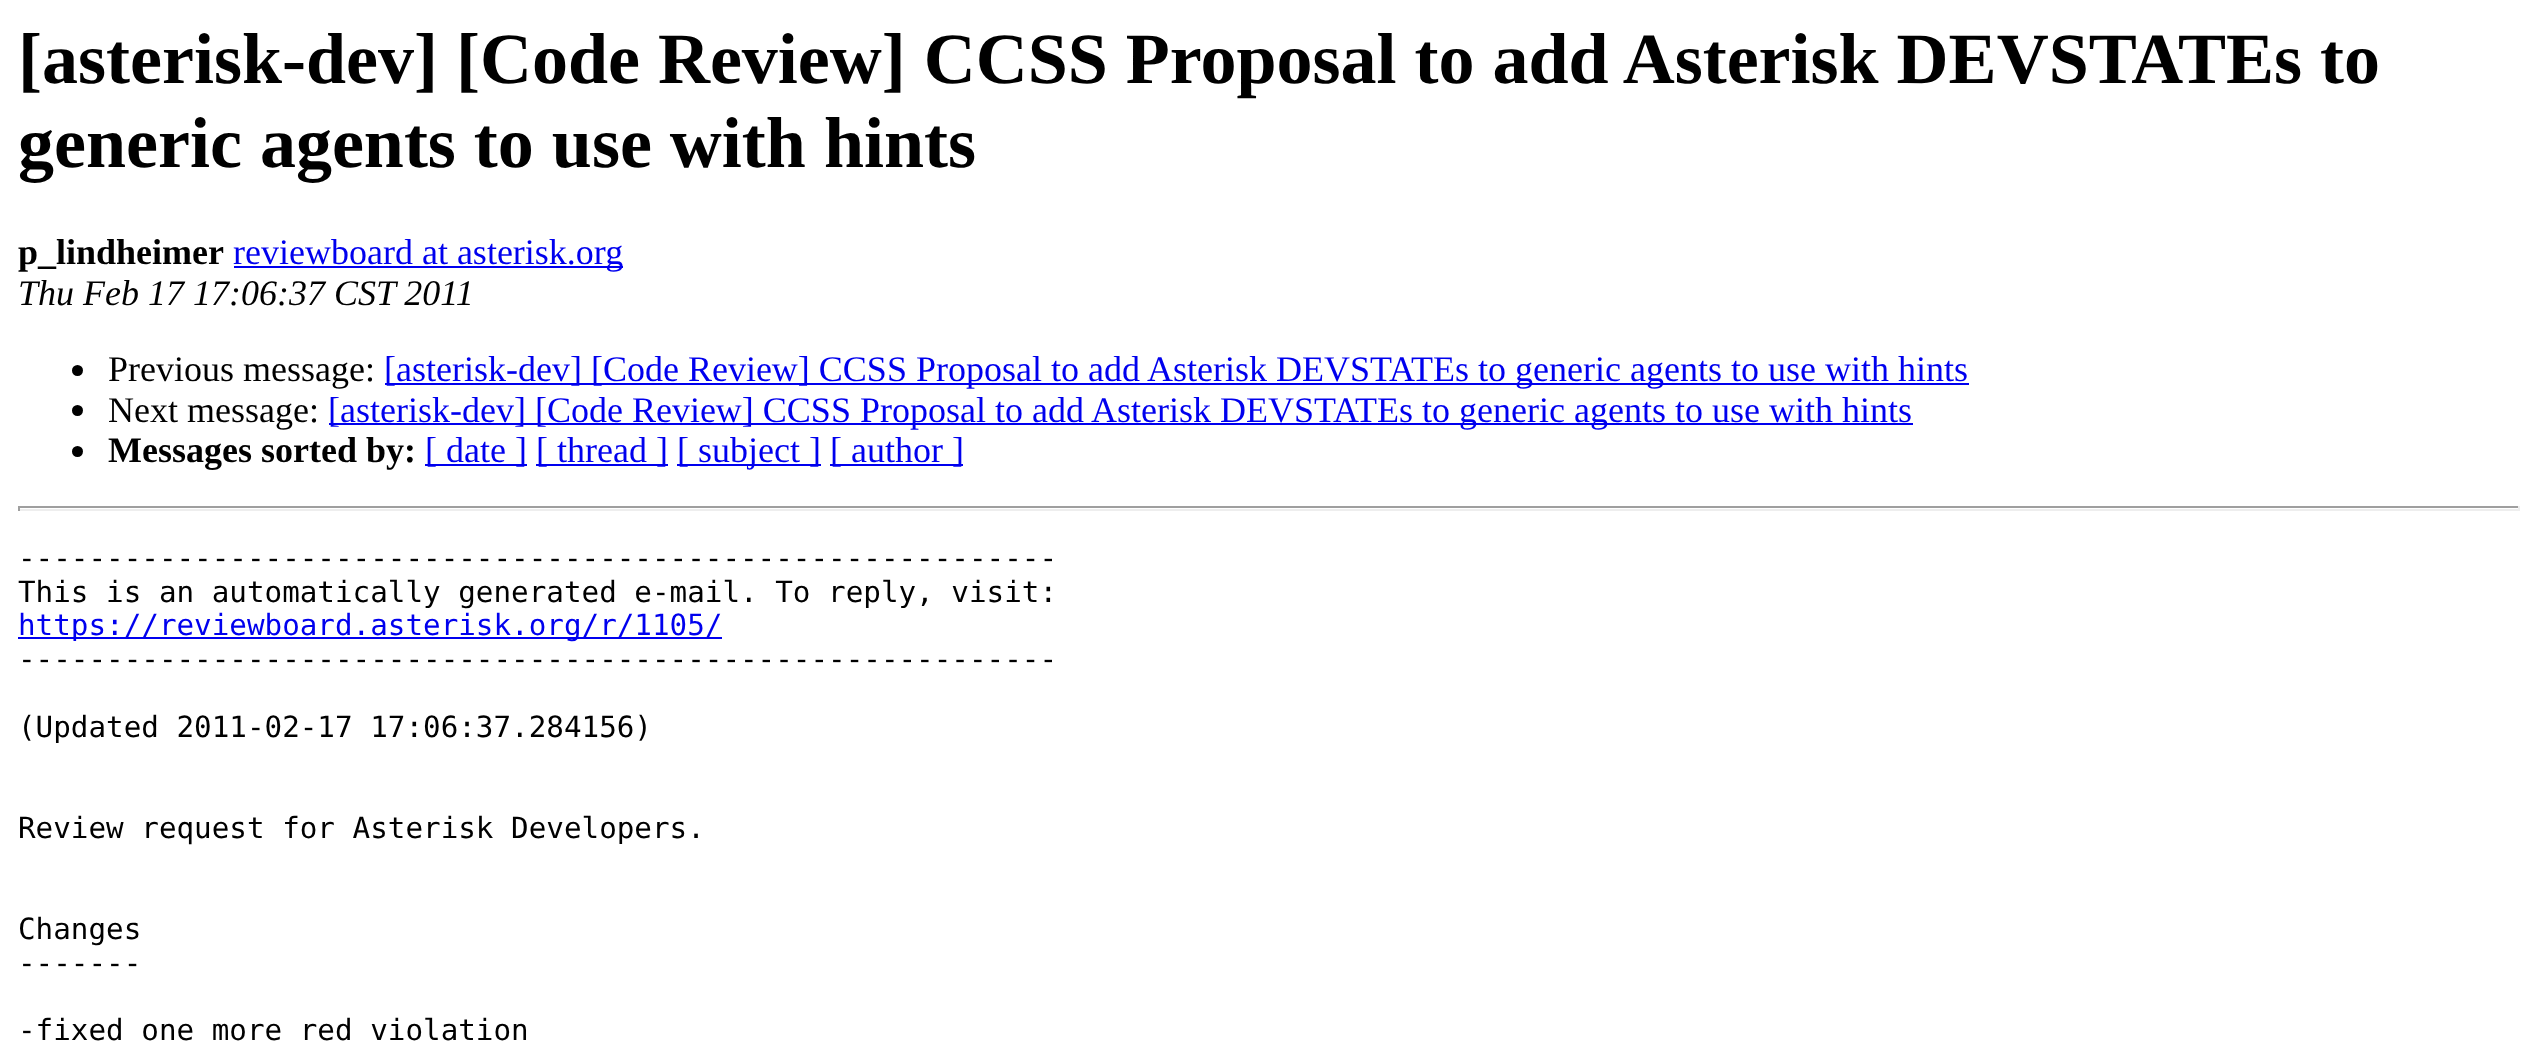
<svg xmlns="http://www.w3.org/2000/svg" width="2537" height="1050">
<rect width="100%" height="100%" fill="#fff"/>
<text x="18" y="83" style="font-family:Liberation Serif;font-size:72px;font-weight:bold;fill:#000">[asterisk-dev] [Code Review] CCSS Proposal to add Asterisk DEVSTATEs to</text>
<text x="18" y="167" style="font-family:Liberation Serif;font-size:72px;font-weight:bold;fill:#000">generic agents to use with hints</text>
<text x="18" y="264" style="font-family:Liberation Serif;font-size:36px;font-weight:bold;fill:#000">p_lindheimer</text>
<rect x="234" y="266" width="389" height="2" fill="#00e"/>
<text x="233" y="264" style="font-family:Liberation Serif;font-size:36px;fill:#00e">reviewboard at asterisk.org</text>
<text x="18" y="305" style="font-family:Liberation Serif;font-size:36px;font-style:italic;fill:#000">Thu Feb 17 17:06:37 CST 2011</text>
<circle cx="77.5" cy="370.5" r="5.5" fill="#000"/>
<text x="108" y="381" style="font-family:Liberation Serif;font-size:36px;fill:#000">Previous message:</text>
<rect x="385" y="383" width="1584" height="2" fill="#00e"/>
<text x="384" y="381" style="font-family:Liberation Serif;font-size:36px;fill:#00e">[asterisk-dev] [Code Review] CCSS Proposal to add Asterisk DEVSTATEs to generic agents to use with hints</text>
<circle cx="77.5" cy="410.5" r="5.5" fill="#000"/>
<text x="108" y="422" style="font-family:Liberation Serif;font-size:36px;fill:#000">Next message:</text>
<rect x="329" y="423" width="1584" height="2" fill="#00e"/>
<text x="328" y="422" style="font-family:Liberation Serif;font-size:36px;fill:#00e">[asterisk-dev] [Code Review] CCSS Proposal to add Asterisk DEVSTATEs to generic agents to use with hints</text>
<circle cx="77.5" cy="451.5" r="5.5" fill="#000"/>
<text x="108" y="462" style="font-family:Liberation Serif;font-size:36px;font-weight:bold;fill:#000">Messages sorted by:</text>
<rect x="425" y="464" width="102" height="2" fill="#00e"/>
<text x="425" y="462" style="font-family:Liberation Serif;font-size:36px;fill:#00e">[ date ]</text>
<rect x="536" y="464" width="132" height="2" fill="#00e"/>
<text x="536" y="462" style="font-family:Liberation Serif;font-size:36px;fill:#00e">[ thread ]</text>
<rect x="677" y="464" width="144" height="2" fill="#00e"/>
<text x="677" y="462" style="font-family:Liberation Serif;font-size:36px;fill:#00e">[ subject ]</text>
<rect x="830" y="464" width="133" height="2" fill="#00e"/>
<text x="830" y="462" style="font-family:Liberation Serif;font-size:36px;fill:#00e">[ author ]</text>
<rect x="18" y="506" width="2502" height="2" fill="#9f9f9f"/>
<rect x="2518" y="506" width="2" height="5" fill="#eee"/>
<rect x="18" y="509" width="2502" height="2" fill="#eee"/>
<rect x="18" y="506" width="2" height="5" fill="#9f9f9f"/>
<text x="18" y="568" style="font-family:DejaVu Sans Mono;font-size:29.25px;fill:#000">-----------------------------------------------------------</text>
<text x="18" y="602" style="font-family:DejaVu Sans Mono;font-size:29.25px;fill:#000">This is an automatically generated e-mail. To reply, visit:</text>
<rect x="18" y="637" width="704" height="2" fill="#00e"/>
<text x="18" y="635" style="font-family:DejaVu Sans Mono;font-size:29.25px;fill:#00e">https://reviewboard.asterisk.org/r/1105/</text>
<text x="18" y="669" style="font-family:DejaVu Sans Mono;font-size:29.25px;fill:#000">-----------------------------------------------------------</text>
<text x="18" y="737" style="font-family:DejaVu Sans Mono;font-size:29.25px;fill:#000">(Updated 2011-02-17 17:06:37.284156)</text>
<text x="18" y="838" style="font-family:DejaVu Sans Mono;font-size:29.25px;fill:#000">Review request for Asterisk Developers.</text>
<text x="18" y="939" style="font-family:DejaVu Sans Mono;font-size:29.25px;fill:#000">Changes</text>
<text x="18" y="973" style="font-family:DejaVu Sans Mono;font-size:29.25px;fill:#000">-------</text>
<text x="18" y="1040" style="font-family:DejaVu Sans Mono;font-size:29.25px;fill:#000">-fixed one more red violation</text>
</svg>
